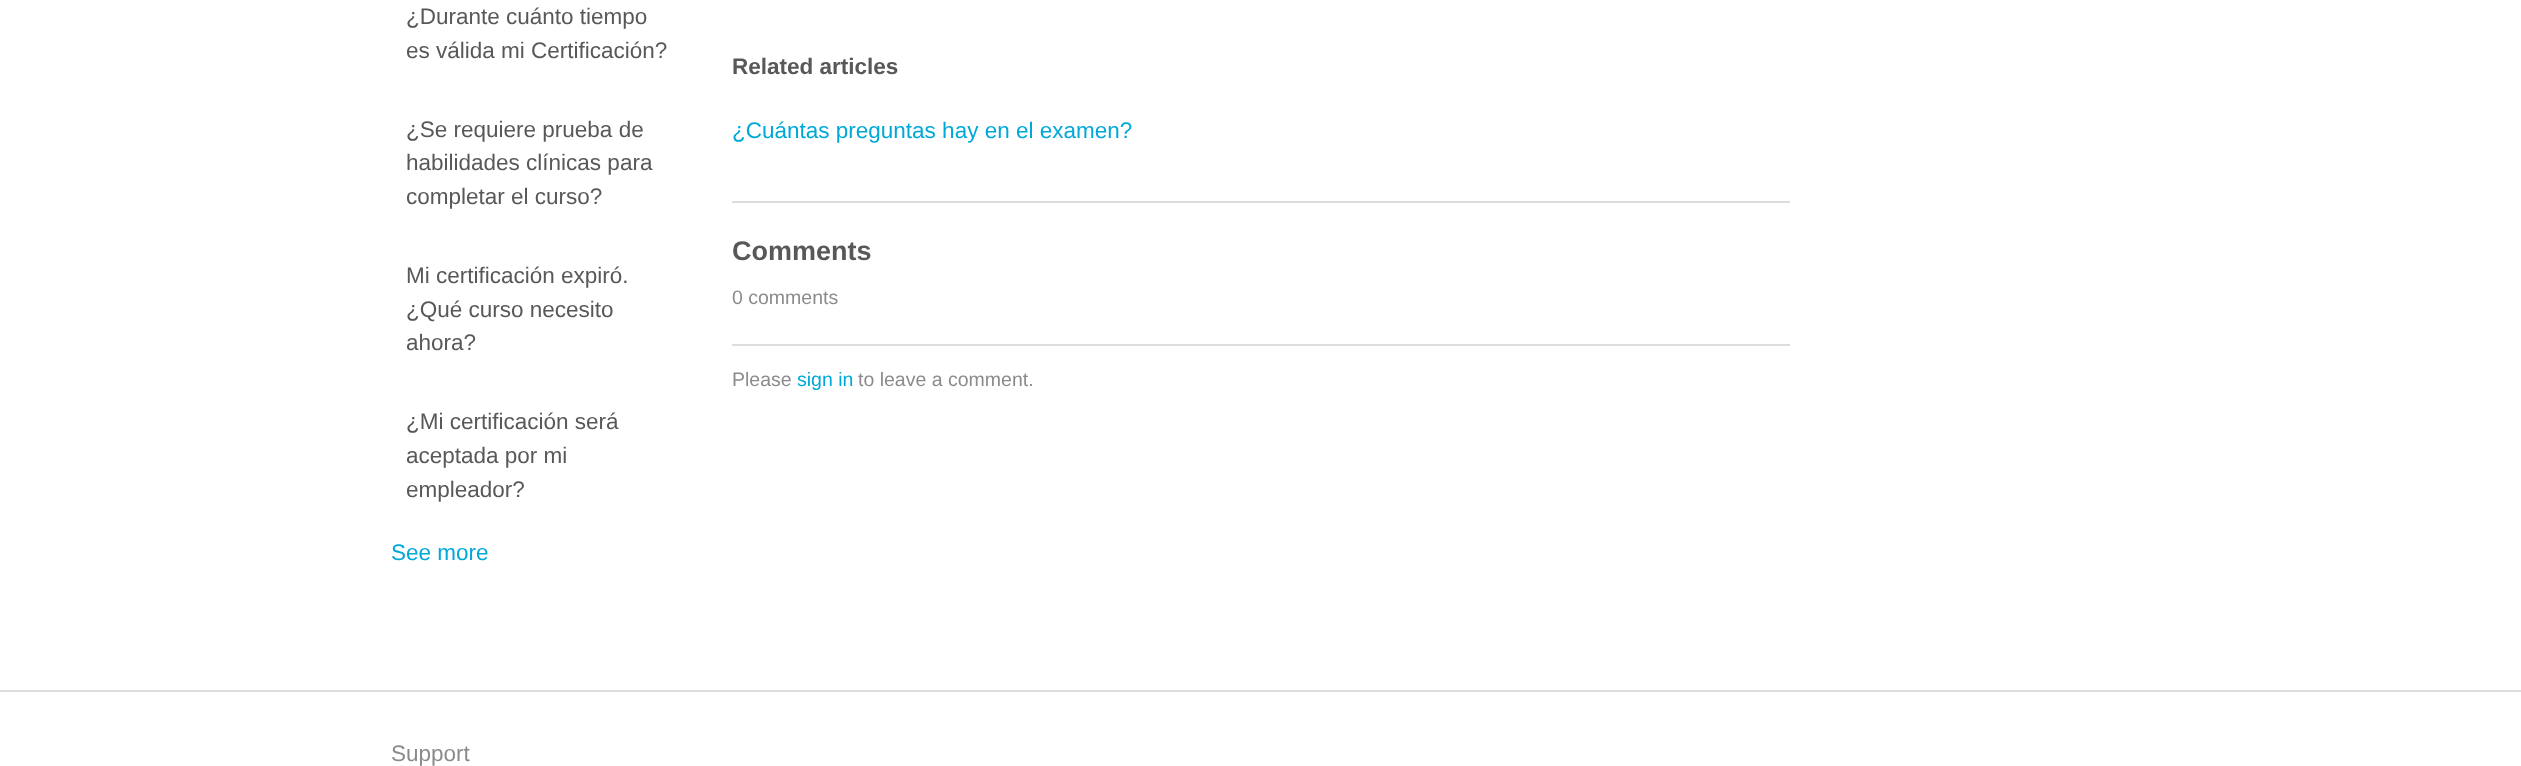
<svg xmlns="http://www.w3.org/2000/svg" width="2521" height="766">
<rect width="100%" height="100%" fill="#fff"/>
<text x="406" y="24" style="font-family:Liberation Sans;font-size:22.5px;fill:#58585a">¿Durante cuánto tiempo</text>
<text x="406" y="58" style="font-family:Liberation Sans;font-size:22.5px;fill:#58585a">es válida mi Certificación?</text>
<text x="406" y="137" style="font-family:Liberation Sans;font-size:22.5px;fill:#58585a">¿Se requiere prueba de</text>
<text x="406" y="170" style="font-family:Liberation Sans;font-size:22.5px;fill:#58585a">habilidades clínicas para</text>
<text x="406" y="204" style="font-family:Liberation Sans;font-size:22.5px;fill:#58585a">completar el curso?</text>
<text x="406" y="283" style="font-family:Liberation Sans;font-size:22.5px;fill:#58585a">Mi certificación expiró.</text>
<text x="406" y="317" style="font-family:Liberation Sans;font-size:22.5px;fill:#58585a">¿Qué curso necesito</text>
<text x="406" y="350" style="font-family:Liberation Sans;font-size:22.5px;fill:#58585a">ahora?</text>
<text x="406" y="429" style="font-family:Liberation Sans;font-size:22.5px;fill:#58585a">¿Mi certificación será</text>
<text x="406" y="463" style="font-family:Liberation Sans;font-size:22.5px;fill:#58585a">aceptada por mi</text>
<text x="406" y="497" style="font-family:Liberation Sans;font-size:22.5px;fill:#58585a">empleador?</text>
<text x="391" y="560" style="font-family:Liberation Sans;font-size:22.5px;fill:#00a8d7">See more</text>
<text x="732" y="74" style="font-family:Liberation Sans;font-size:22.5px;font-weight:bold;fill:#58585a">Related articles</text>
<text x="732" y="138" style="font-family:Liberation Sans;font-size:22.5px;fill:#00a8d7">¿Cuántas preguntas hay en el examen?</text>
<rect x="732" y="201" width="1058" height="2" fill="#ddd"/>
<rect x="732" y="344" width="1058" height="2" fill="#ddd"/>
<text x="732" y="260" style="font-family:Liberation Sans;font-size:27px;font-weight:bold;fill:#58585a">Comments</text>
<text x="732" y="304" style="font-family:Liberation Sans;font-size:19.5px;fill:#8b8b8d">0 comments</text>
<text x="732" y="386" style="font-family:Liberation Sans;font-size:19.5px;fill:#8b8b8d">Please</text>
<text x="797" y="386" style="font-family:Liberation Sans;font-size:19.5px;fill:#00a8d7">sign in</text>
<text x="858" y="386" style="font-family:Liberation Sans;font-size:19.5px;fill:#8b8b8d">to leave a comment.</text>
<rect y="690" width="2521" height="2" fill="#ddd"/>
<text x="391" y="761" style="font-family:Liberation Sans;font-size:22.5px;fill:#8b8b8d">Support</text>
</svg>
